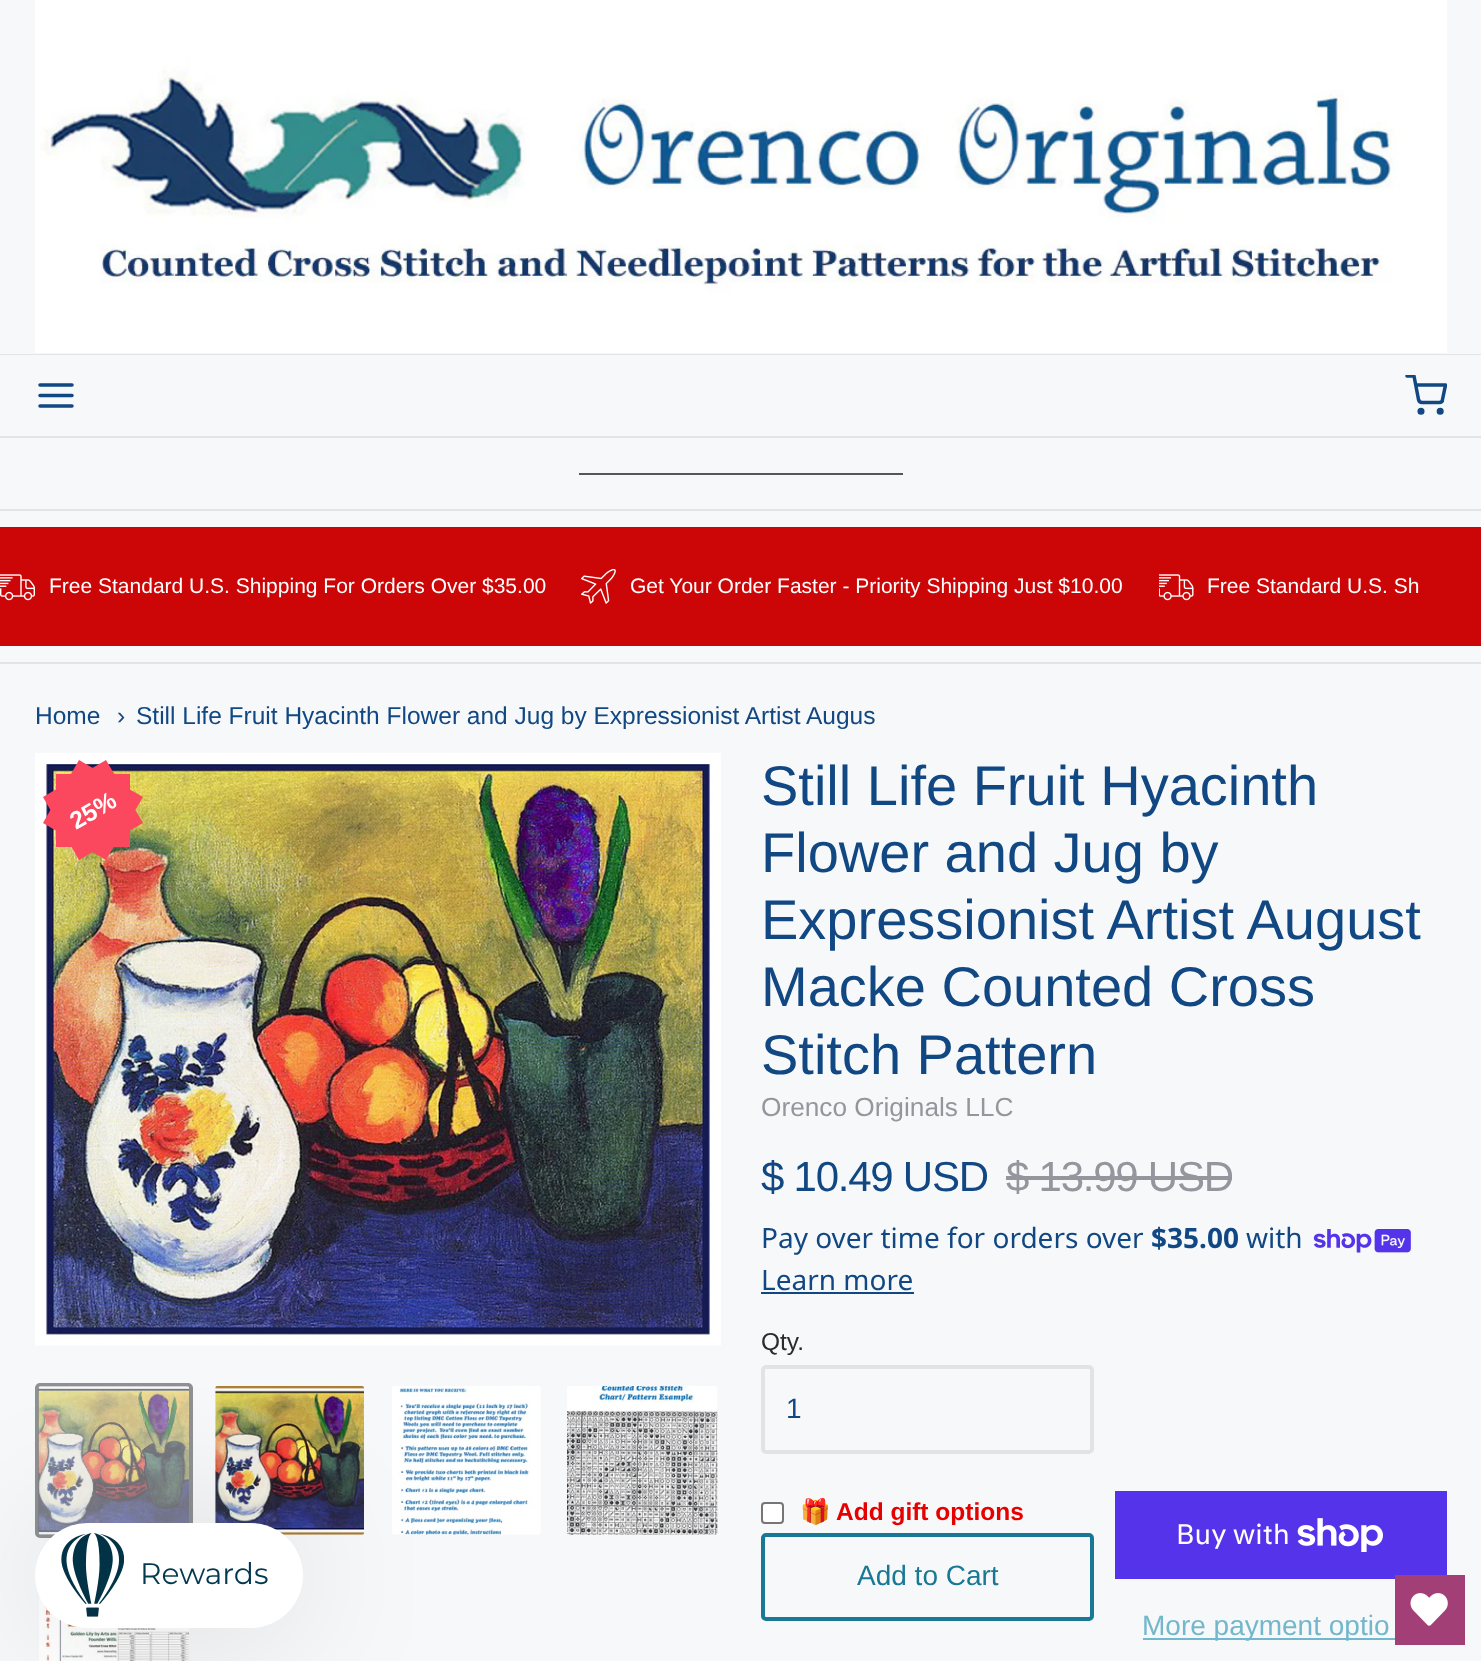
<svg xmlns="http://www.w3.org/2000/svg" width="1481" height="1661">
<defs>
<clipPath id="clip1"><rect x="1405" y="375" width="42" height="42"/></clipPath>
</defs>
<rect width="100%" height="100%" fill="#f7f8f9"/>
<rect y="354" width="1481" height="1" fill="#e3e4e5"/>
<image x="35" y="0" width="1412" height="353" href="media/1.png"/>
<rect y="436" width="1481" height="2" fill="#e3e4e5"/>
<path d="M40 395.5h32m-32-10.5h32m-32 21h32" fill="none" stroke="#114883" stroke-width="3.5" stroke-linecap="round" stroke-linejoin="round"/>
<g clip-path="url(#clip1)">
<path d="M1407 376h7l4.5 23.5c.5 2 2 3 3.5 3h17c2 0 3.5-1 3.5-3l3-14.5h-29.5" fill="none" stroke="#114883" stroke-width="3.5" stroke-linecap="round" stroke-linejoin="round"/>
</g>
<circle cx="1421" cy="411.2" r="1.8" fill="none" stroke="#114883" stroke-width="3.5"/>
<circle cx="1440.2" cy="411.2" r="1.8" fill="none" stroke="#114883" stroke-width="3.5"/>
<rect y="509" width="1481" height="2" fill="#e3e4e5"/>
<rect x="579" y="473" width="324" height="2" fill="#565656"/>
<rect y="662" width="1481" height="2" fill="#e3e4e5"/>
<rect y="527" width="1481" height="119" fill="#cc0606"/>
<image x="0" y="574" width="35" height="27" href="media/2.png"/>
<text x="49" y="593" style="font-family:Liberation Sans;font-size:21px;fill:#fff">Free Standard U.S. Shipping For Orders Over $35.00</text>
<image x="581" y="569" width="35" height="35" href="media/3.png"/>
<text x="630" y="593" style="font-family:Liberation Sans;font-size:21px;fill:#fff">Get Your Order Faster - Priority Shipping Just $10.00</text>
<image x="1159" y="574" width="35" height="27" href="media/4.png"/>
<text x="1207" y="593" style="font-family:Liberation Sans;font-size:21px;fill:#fff">Free Standard U.S. Sh</text>
<text x="35" y="724" style="font-family:Liberation Sans;font-size:24.5px;fill:#114883">Home</text>
<text x="117" y="724" style="font-family:Liberation Sans;font-size:24.5px;fill:#114883">›</text>
<text x="136" y="724" style="font-family:Liberation Sans;font-size:24.5px;fill:#114883">Still Life Fruit Hyacinth Flower and Jug by Expressionist Artist Augus</text>
<image x="35" y="753" width="686" height="593" href="media/5.png"/>
<path d="M43 797l63-37l37 63l-64 37z" fill="#fb485e"/>
<rect x="56" y="774" width="74" height="73" fill="#fb485e"/>
<path d="M43 823l36-63l64 37l-37 63z" fill="#fb485e"/>
<text x="76" y="830" transform="rotate(-30 76 830)" style="font-family:Liberation Sans;font-size:24.5px;font-weight:bold;fill:#fff">25%</text>
<rect x="37" y="1385" width="154" height="151" rx="3" fill="#f3f5f6" stroke="#8e9093" stroke-width="4"/>
<image x="38" y="1386" width="151" height="149" href="media/6.png"/>
<image x="215" y="1386" width="149" height="149" href="media/7.png"/>
<image x="392" y="1386" width="149" height="149" href="media/8.png"/>
<image x="567" y="1386" width="151" height="149" href="media/9.png"/>
<image x="39" y="1595" width="150" height="66" href="media/10.png"/>
<text x="761" y="805" style="font-family:Liberation Sans;font-size:56px;fill:#114883">Still Life Fruit Hyacinth</text>
<text x="761" y="872" style="font-family:Liberation Sans;font-size:56px;fill:#114883">Flower and Jug by</text>
<text x="761" y="939" style="font-family:Liberation Sans;font-size:56px;fill:#114883">Expressionist Artist August</text>
<text x="761" y="1006" style="font-family:Liberation Sans;font-size:56px;fill:#114883">Macke Counted Cross</text>
<text x="761" y="1074" style="font-family:Liberation Sans;font-size:56px;fill:#114883">Stitch Pattern</text>
<text x="761" y="1116" style="font-family:Liberation Sans;font-size:26.25px;fill:#93979d">Orenco Originals LLC</text>
<text x="761" y="1191" style="font-family:Liberation Sans;font-size:42px;letter-spacing:-1.25px;fill:#114883">$ 10.49 USD</text>
<text x="1006" y="1191" style="font-family:Liberation Sans;font-size:42px;letter-spacing:-1.25px;fill:#93979d">$ 13.99 USD</text>
<rect x="1006" y="1176" width="226" height="4" fill="#93979d"/>
<text x="761" y="1248" style="font-family:Noto Sans;font-size:28px;fill:#114883">Pay over time for orders over</text>
<text x="1151" y="1248" style="font-family:Noto Sans;font-size:28px;font-weight:bold;fill:#114883">$35.00</text>
<text x="1246" y="1248" style="font-family:Noto Sans;font-size:28px;fill:#114883">with</text>
<image x="1313" y="1229" width="98" height="24" href="media/11.png"/>
<text x="761" y="1290" style="font-family:Noto Sans;font-size:28px;fill:#114883">Learn more</text>
<rect x="761" y="1292" width="153" height="2" fill="#114883"/>
<text x="761" y="1350" style="font-family:Liberation Sans;font-size:24.5px;fill:#2a2b2b">Qty.</text>
<rect x="763" y="1367" width="329" height="85" rx="3" fill="none" stroke="#e1e3e4" stroke-width="4"/>
<text x="786" y="1418" style="font-family:Liberation Sans;font-size:28px;fill:#114883">1</text>
<rect x="762" y="1503" width="21" height="20" rx="3" fill="#fff" stroke="#767676" stroke-width="2"/>
<text x="800" y="1520" style="font-family:Noto Color Emoji;font-size:24.5px;font-weight:bold;fill:#e60000">🎁</text>
<text x="836" y="1520" style="font-family:Liberation Sans;font-size:24.5px;font-weight:bold;fill:#e60000">Add gift options</text>
<rect x="763" y="1535" width="329" height="84" rx="3" fill="none" stroke="#187895" stroke-width="4"/>
<text x="857" y="1585" style="font-family:Liberation Sans;font-size:28px;fill:#187895">Add to Cart</text>
<rect x="1115" y="1491" width="332" height="88" fill="#5433eb"/>
<text x="1176" y="1544" style="font-family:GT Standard;font-size:28px;fill:#fff">Buy with</text>
<image x="1297" y="1518" width="86" height="34" href="media/12.png"/>
<rect x="1143" y="1638" width="252" height="2" fill="#73b7cc"/>
<text x="1142" y="1635" style="font-family:Liberation Sans;font-size:28px;fill:#73b7cc">More payment optio</text>
<rect x="35" y="1523" width="268" height="105" rx="52.5" fill="#0000001f" filter="blur(70px)"/>
<rect x="35" y="1523" width="268" height="105" rx="52.5" fill="#fff"/>
<image x="61" y="1533" width="63" height="84" href="media/13.png"/>
<text x="140" y="1584" style="font-family:Montserrat;font-size:29.75px;fill:#033950">Rewards</text>
<rect x="1395" y="1575" width="70" height="70" fill="#a33f77"/>
<image x="1410" y="1593" width="38" height="33" href="media/14.png"/>
</svg>
